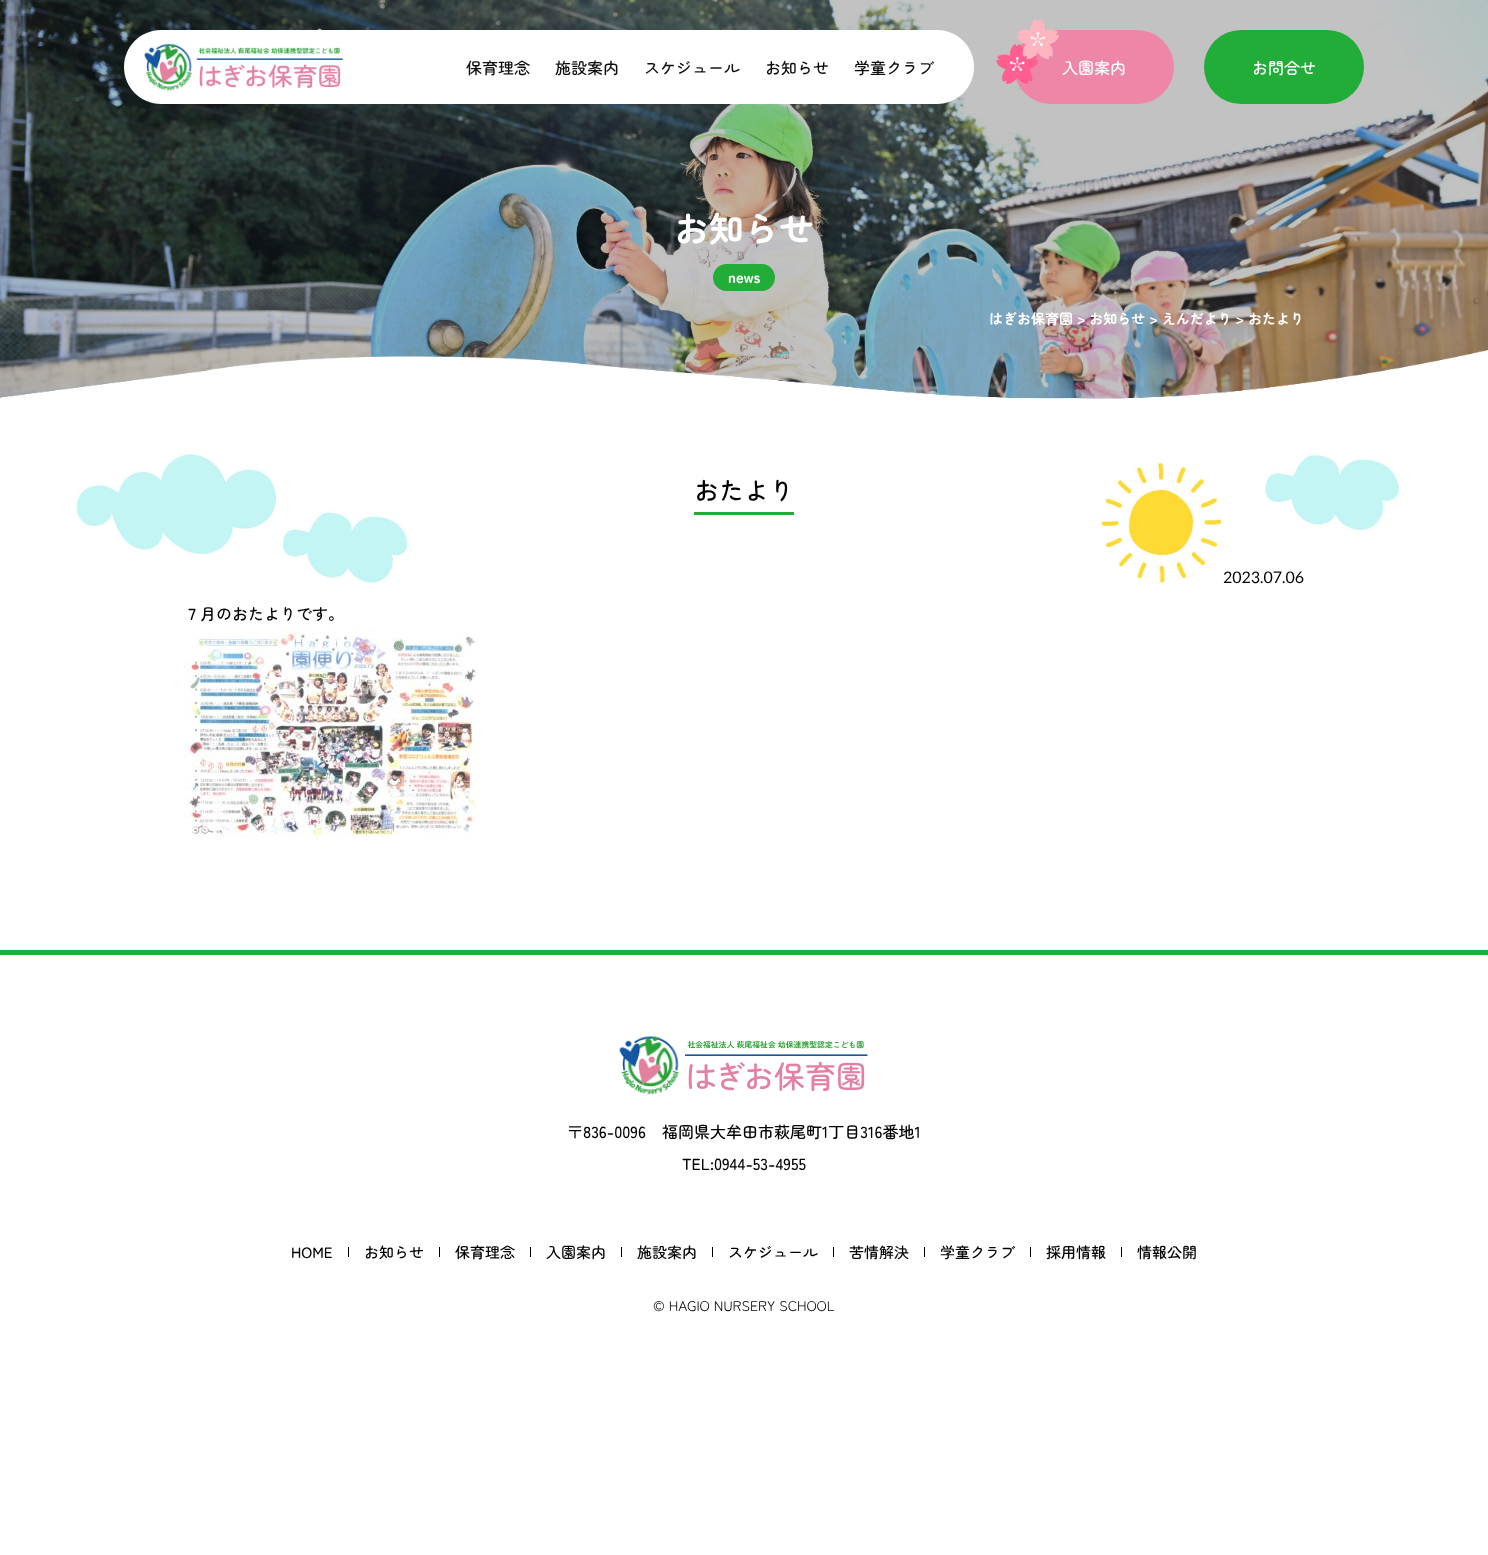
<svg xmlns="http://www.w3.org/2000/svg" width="1488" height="1555">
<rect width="100%" height="100%" fill="#fff"/>
<image x="0" y="0" width="1488" height="410" href="media/3.png"/>
<path d="M161 30h183v74h-183c-20.5 0-37-16.5-37-37c0-20.5 16.5-37 37-37z" fill="#fff"/>
<image x="144" y="43" width="200" height="48" href="media/1.png"/>
<path d="M344 30h593c20.5 0 37 16.5 37 37c0 20.5-16.5 37-37 37h-593z" fill="#fff"/>
<text x="466" y="74" style="font-family:Zen Maru Gothic;font-size:16px;font-weight:500;fill:#0e0e0e">保育理念</text>
<text x="555" y="74" style="font-family:Zen Maru Gothic;font-size:16px;font-weight:500;fill:#0e0e0e">施設案内</text>
<text x="644" y="74" style="font-family:Zen Maru Gothic;font-size:16px;font-weight:500;fill:#0e0e0e">スケジュール</text>
<text x="765" y="74" style="font-family:Zen Maru Gothic;font-size:16px;font-weight:500;fill:#0e0e0e">お知らせ</text>
<text x="854" y="74" style="font-family:Zen Maru Gothic;font-size:16px;font-weight:500;fill:#0e0e0e">学童クラブ</text>
<rect x="1014" y="30" width="160" height="74" rx="37" fill="#ee86a7"/>
<image x="996" y="19" width="63" height="65" href="media/2.png"/>
<text x="1062" y="74" style="font-family:Zen Maru Gothic;font-size:16px;font-weight:500;fill:#fff">入園案内</text>
<rect x="1204" y="30" width="160" height="74" rx="37" fill="#22ac38"/>
<text x="1252" y="74" style="font-family:Zen Maru Gothic;font-size:16px;font-weight:500;fill:#fff">お問合せ</text>
<text x="674" y="242" style="font-family:Zen Maru Gothic;font-size:35px;font-weight:bold;fill:#fff">お知らせ</text>
<rect x="713" y="264" width="62" height="27" rx="13.5" fill="#22ac38"/>
<text x="728" y="283" style="font-family:Zen Maru Gothic;font-size:15px;font-weight:bold;fill:#fff">news</text>
<text x="989" y="324" style="font-family:Zen Maru Gothic;font-size:14px;font-weight:bold;fill:#fff">はぎお保育園 &gt; お知らせ &gt; えんだより &gt; おたより</text>
<image x="0" y="350" width="1488" height="100" href="media/4.png"/>
<image x="74" y="453" width="1326" height="130" href="media/5.png"/>
<rect x="694" y="512" width="100" height="3" fill="#22ac38"/>
<text x="694" y="500" style="font-family:Zen Maru Gothic;font-size:25px;font-weight:500;fill:#000">おたより</text>
<text x="1223" y="583" style="font-family:Lato;font-size:16px;fill:#000">2023.07.06</text>
<text x="184" y="620" style="font-family:Zen Maru Gothic;font-size:16px;font-weight:500;fill:#000">７月のおたよりです。</text>
<image x="184" y="629" width="296" height="211" href="media/6.png"/>
<rect y="950" width="1488" height="5" fill="#22ac38"/>
<image x="619" y="1035" width="249" height="60" href="media/7.png"/>
<text x="567" y="1138" style="font-family:Zen Maru Gothic;font-size:16px;font-weight:500;fill:#000">〒836-0096</text>
<text x="662" y="1138" style="font-family:Zen Maru Gothic;font-size:16px;font-weight:500;fill:#000">福岡県大牟田市萩尾町1丁目316番地1</text>
<text x="682" y="1170" style="font-family:Zen Maru Gothic;font-size:16px;font-weight:500;fill:#000">TEL:0944-53-4955</text>
<text x="291" y="1258" style="font-family:Zen Maru Gothic;font-size:15px;font-weight:500;fill:#000">HOME</text>
<rect x="348" y="1247" width="1" height="10" fill="#000"/>
<text x="364" y="1258" style="font-family:Zen Maru Gothic;font-size:15px;font-weight:500;fill:#000">お知らせ</text>
<rect x="439" y="1247" width="1" height="10" fill="#000"/>
<text x="455" y="1258" style="font-family:Zen Maru Gothic;font-size:15px;font-weight:500;fill:#000">保育理念</text>
<rect x="530" y="1247" width="1" height="10" fill="#000"/>
<text x="546" y="1258" style="font-family:Zen Maru Gothic;font-size:15px;font-weight:500;fill:#000">入園案内</text>
<rect x="621" y="1247" width="1" height="10" fill="#000"/>
<text x="637" y="1258" style="font-family:Zen Maru Gothic;font-size:15px;font-weight:500;fill:#000">施設案内</text>
<rect x="712" y="1247" width="1" height="10" fill="#000"/>
<text x="728" y="1258" style="font-family:Zen Maru Gothic;font-size:15px;font-weight:500;fill:#000">スケジュール</text>
<rect x="833" y="1247" width="1" height="10" fill="#000"/>
<text x="849" y="1258" style="font-family:Zen Maru Gothic;font-size:15px;font-weight:500;fill:#000">苦情解決</text>
<rect x="924" y="1247" width="1" height="10" fill="#000"/>
<text x="940" y="1258" style="font-family:Zen Maru Gothic;font-size:15px;font-weight:500;fill:#000">学童クラブ</text>
<rect x="1030" y="1247" width="1" height="10" fill="#000"/>
<text x="1046" y="1258" style="font-family:Zen Maru Gothic;font-size:15px;font-weight:500;fill:#000">採用情報</text>
<rect x="1121" y="1247" width="1" height="10" fill="#000"/>
<text x="1137" y="1258" style="font-family:Zen Maru Gothic;font-size:15px;font-weight:500;fill:#000">情報公開</text>
<text x="653" y="1311" style="font-family:Zen Maru Gothic;font-size:14px;fill:#000">©︎ HAGIO NURSERY SCHOOL</text>
</svg>
